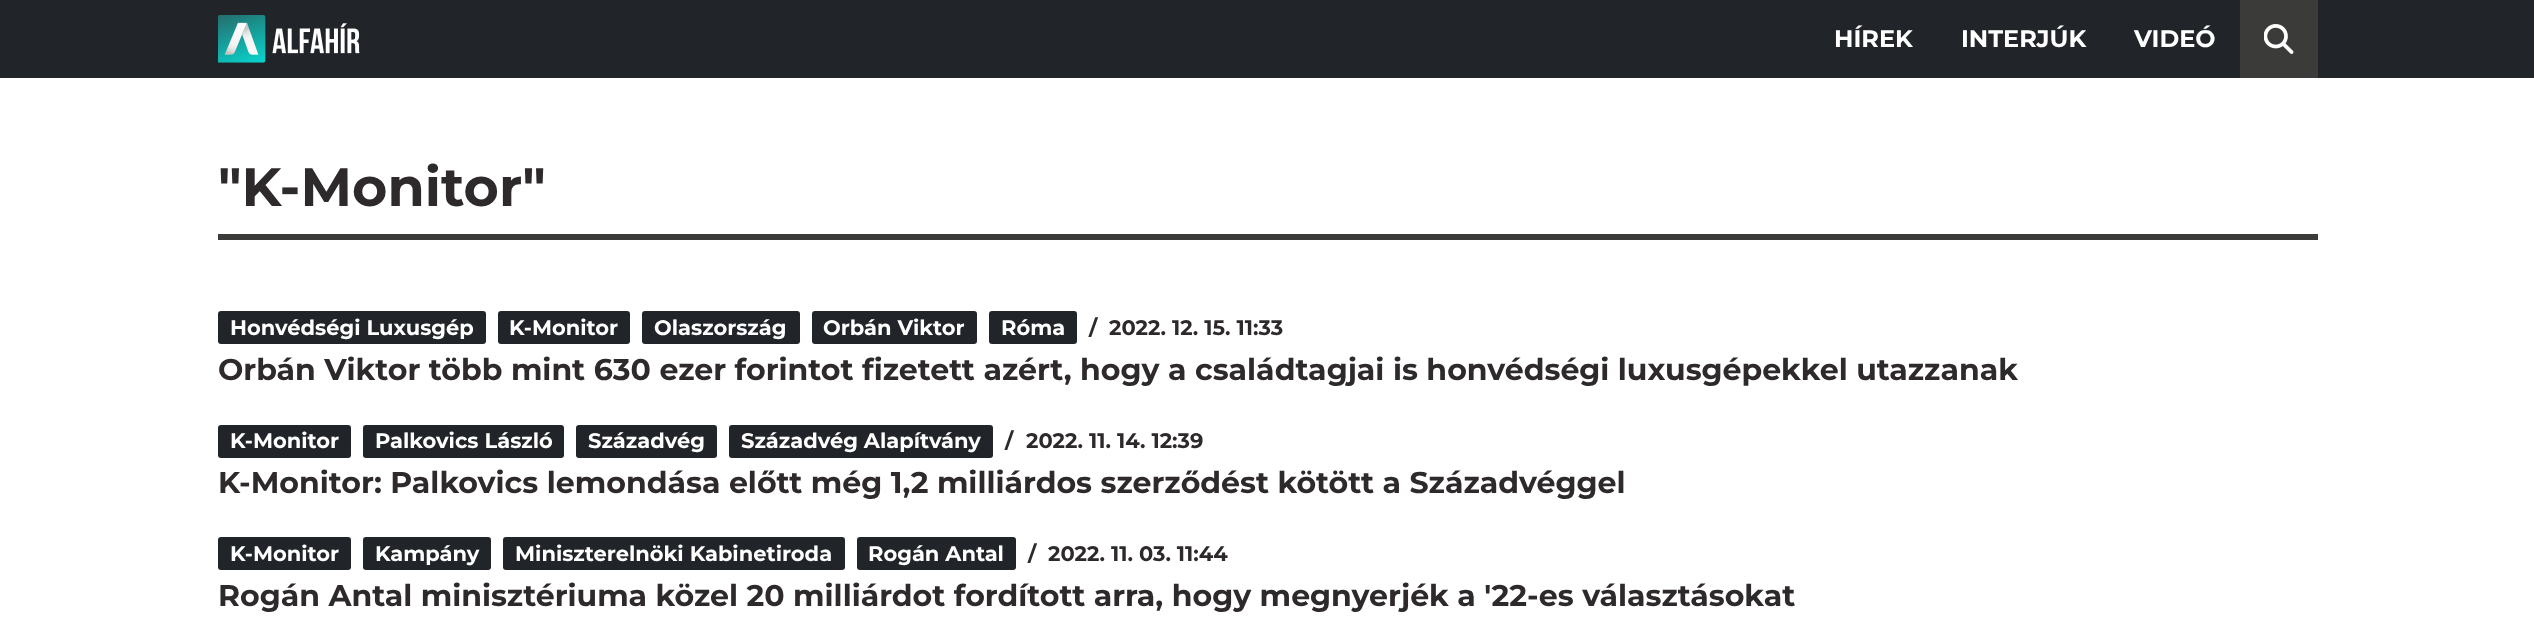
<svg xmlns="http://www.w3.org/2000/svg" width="2534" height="618">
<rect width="100%" height="100%" fill="#fff"/>
<rect width="2534" height="78" fill="#212529"/>
<image x="218" y="15" width="142" height="48" href="media/1.png"/>
<text x="1834" y="47" style="font-family:Montserrat;font-size:24px;font-weight:bold;fill:#fff">HÍREK</text>
<text x="1961" y="47" style="font-family:Montserrat;font-size:24px;font-weight:bold;fill:#fff">INTERJÚK</text>
<text x="2134" y="47" style="font-family:Montserrat;font-size:24px;font-weight:bold;fill:#fff">VIDEÓ</text>
<rect x="2240" width="78" height="78" fill="#3b3b3a"/>
<image x="2264" y="24" width="30" height="30" href="media/2.png"/>
<rect x="218" y="234" width="2100" height="6" fill="#3b3b3a"/>
<text x="218" y="206" style="font-family:Montserrat;font-size:54px;font-weight:bold;fill:#2e292a">"K-Monitor"</text>
<rect x="218" y="311" width="268" height="33" rx="3" fill="#212529"/>
<text x="230" y="335" style="font-family:Montserrat;font-size:21px;font-weight:bold;fill:#fff">Honvédségi Luxusgép</text>
<rect x="498" y="311" width="132" height="33" rx="3" fill="#212529"/>
<text x="509" y="335" style="font-family:Montserrat;font-size:21px;font-weight:bold;fill:#fff">K-Monitor</text>
<rect x="642" y="311" width="158" height="33" rx="3" fill="#212529"/>
<text x="654" y="335" style="font-family:Montserrat;font-size:21px;font-weight:bold;fill:#fff">Olaszország</text>
<rect x="812" y="311" width="165" height="33" rx="3" fill="#212529"/>
<text x="823" y="335" style="font-family:Montserrat;font-size:21px;font-weight:bold;fill:#fff">Orbán Viktor</text>
<rect x="989" y="311" width="88" height="33" rx="3" fill="#212529"/>
<text x="1001" y="335" style="font-family:Montserrat;font-size:21px;font-weight:bold;fill:#fff">Róma</text>
<text x="1089" y="335" style="font-family:Montserrat;font-size:21px;font-weight:bold;fill:#2e292a">/</text>
<text x="1109" y="335" style="font-family:Montserrat;font-size:21px;font-weight:bold;fill:#2e292a">2022. 12. 15. 11:33</text>
<text x="218" y="380" style="font-family:Montserrat;font-size:30px;font-weight:bold;fill:#2e292a">Orbán Viktor több mint 630 ezer forintot fizetett azért, hogy a családtagjai is honvédségi luxusgépekkel utazzanak</text>
<rect x="218" y="425" width="133" height="33" rx="3" fill="#212529"/>
<text x="230" y="448" style="font-family:Montserrat;font-size:21px;font-weight:bold;fill:#fff">K-Monitor</text>
<rect x="363" y="425" width="201" height="33" rx="3" fill="#212529"/>
<text x="375" y="448" style="font-family:Montserrat;font-size:21px;font-weight:bold;fill:#fff">Palkovics László</text>
<rect x="576" y="425" width="141" height="33" rx="3" fill="#212529"/>
<text x="588" y="448" style="font-family:Montserrat;font-size:21px;font-weight:bold;fill:#fff">Századvég</text>
<rect x="729" y="425" width="264" height="33" rx="3" fill="#212529"/>
<text x="741" y="448" style="font-family:Montserrat;font-size:21px;font-weight:bold;fill:#fff">Századvég Alapítvány</text>
<text x="1005" y="448" style="font-family:Montserrat;font-size:21px;font-weight:bold;fill:#2e292a">/</text>
<text x="1026" y="448" style="font-family:Montserrat;font-size:21px;font-weight:bold;fill:#2e292a">2022. 11. 14. 12:39</text>
<text x="218" y="493" style="font-family:Montserrat;font-size:30px;font-weight:bold;fill:#2e292a">K-Monitor: Palkovics lemondása előtt még 1,2 milliárdos szerződést kötött a Századvéggel</text>
<rect x="218" y="537" width="133" height="33" rx="3" fill="#212529"/>
<text x="230" y="561" style="font-family:Montserrat;font-size:21px;font-weight:bold;fill:#fff">K-Monitor</text>
<rect x="363" y="537" width="128" height="33" rx="3" fill="#212529"/>
<text x="375" y="561" style="font-family:Montserrat;font-size:21px;font-weight:bold;fill:#fff">Kampány</text>
<rect x="503" y="537" width="342" height="33" rx="3" fill="#212529"/>
<text x="515" y="561" style="font-family:Montserrat;font-size:21px;font-weight:bold;fill:#fff">Miniszterelnöki Kabinetiroda</text>
<rect x="857" y="537" width="159" height="33" rx="3" fill="#212529"/>
<text x="868" y="561" style="font-family:Montserrat;font-size:21px;font-weight:bold;fill:#fff">Rogán Antal</text>
<text x="1028" y="561" style="font-family:Montserrat;font-size:21px;font-weight:bold;fill:#2e292a">/</text>
<text x="1048" y="561" style="font-family:Montserrat;font-size:21px;font-weight:bold;fill:#2e292a">2022. 11. 03. 11:44</text>
<text x="218" y="606" style="font-family:Montserrat;font-size:30px;font-weight:bold;fill:#2e292a">Rogán Antal minisztériuma közel 20 milliárdot fordított arra, hogy megnyerjék a '22-es választásokat</text>
</svg>
